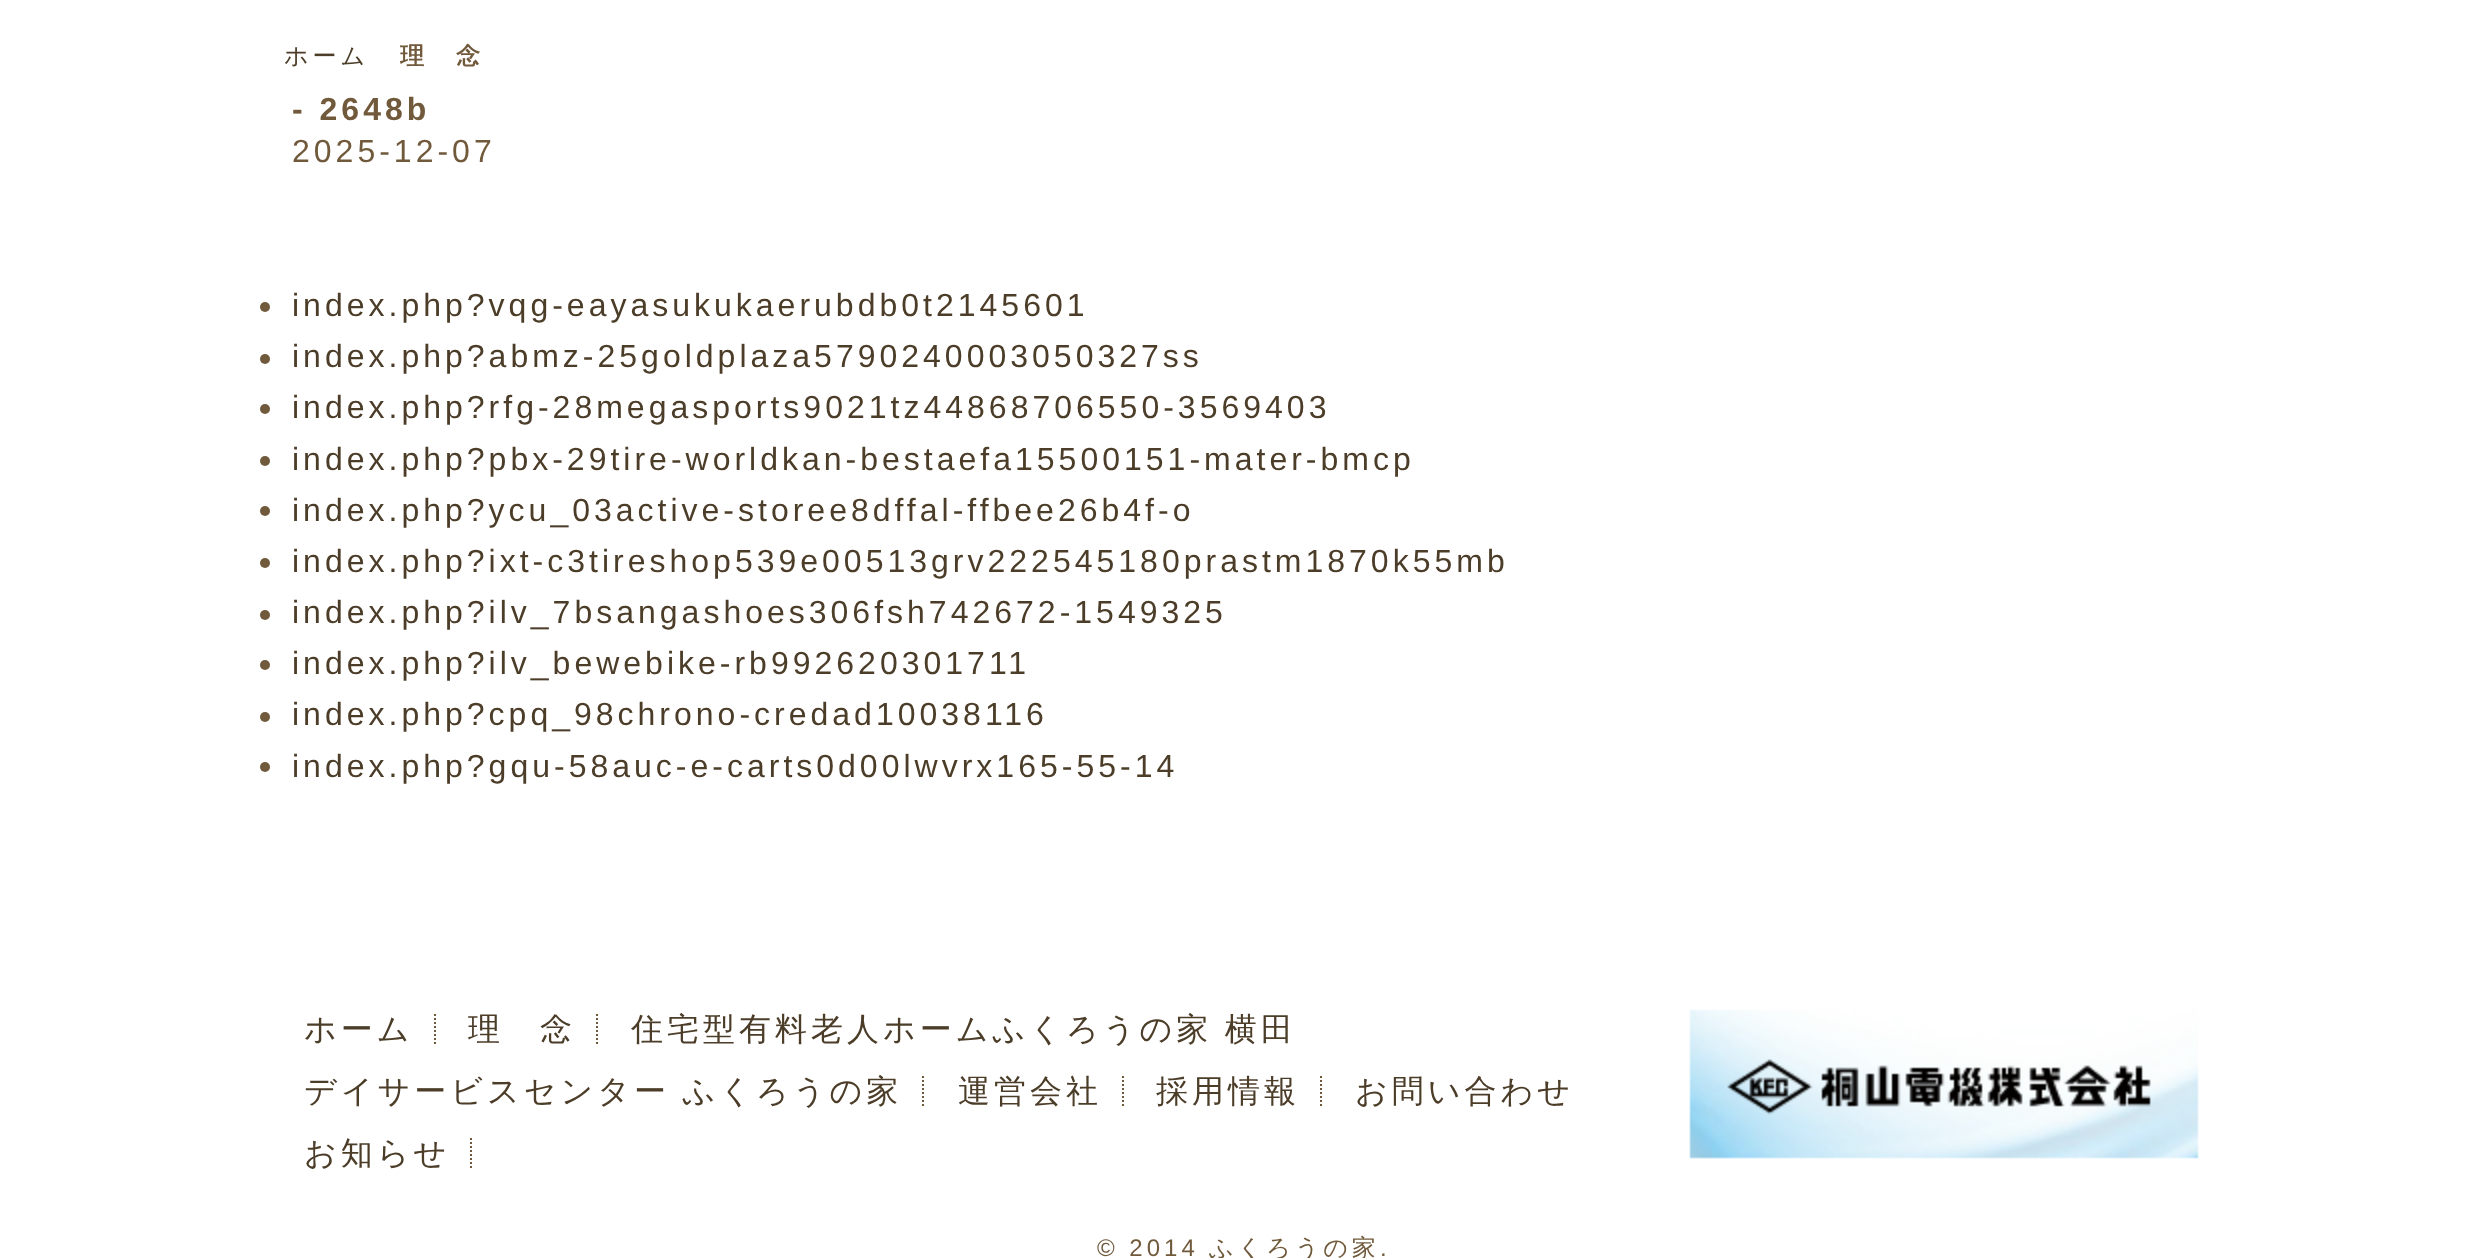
<svg xmlns="http://www.w3.org/2000/svg" width="2488" height="1258">
<rect width="100%" height="100%" fill="#fff"/>
<text x="284" y="64" style="font-family:WenQuanYi Zen Hei;font-size:24px;font-weight:500;letter-spacing:4px;fill:#4c3d29">ホーム</text>
<text x="400" y="64" style="font-family:WenQuanYi Zen Hei;font-size:24px;font-weight:bold;letter-spacing:4px;fill:#715a3c">理　念</text>
<text x="292" y="120" style="font-family:Liberation Sans;font-size:32px;font-weight:bold;letter-spacing:4px;fill:#715a3c">- 2648b</text>
<text x="292" y="162" style="font-family:Liberation Sans;font-size:32px;letter-spacing:4px;fill:#715a3c">2025-12-07</text>
<circle cx="265" cy="307" r="5" fill="#715a3c"/>
<text x="292" y="316" style="font-family:Liberation Sans;font-size:32px;letter-spacing:4px;fill:#4c3d29">index.php?vqg-eayasukukaerubdb0t2145601</text>
<circle cx="265" cy="359" r="5" fill="#715a3c"/>
<text x="292" y="367" style="font-family:Liberation Sans;font-size:32px;letter-spacing:4px;fill:#4c3d29">index.php?abmz-25goldplaza5790240003050327ss</text>
<circle cx="265" cy="409" r="5" fill="#715a3c"/>
<text x="292" y="418" style="font-family:Liberation Sans;font-size:32px;letter-spacing:4px;fill:#4c3d29">index.php?rfg-28megasports9021tz44868706550-3569403</text>
<circle cx="265" cy="461" r="5" fill="#715a3c"/>
<text x="292" y="470" style="font-family:Liberation Sans;font-size:32px;letter-spacing:4px;fill:#4c3d29">index.php?pbx-29tire-worldkan-bestaefa15500151-mater-bmcp</text>
<circle cx="265" cy="511" r="5" fill="#715a3c"/>
<text x="292" y="521" style="font-family:Liberation Sans;font-size:32px;letter-spacing:4px;fill:#4c3d29">index.php?ycu_03active-storee8dffal-ffbee26b4f-o</text>
<circle cx="265" cy="563" r="5" fill="#715a3c"/>
<text x="292" y="572" style="font-family:Liberation Sans;font-size:32px;letter-spacing:4px;fill:#4c3d29">index.php?ixt-c3tireshop539e00513grv222545180prastm1870k55mb</text>
<circle cx="265" cy="615" r="5" fill="#715a3c"/>
<text x="292" y="623" style="font-family:Liberation Sans;font-size:32px;letter-spacing:4px;fill:#4c3d29">index.php?ilv_7bsangashoes306fsh742672-1549325</text>
<circle cx="265" cy="665" r="5" fill="#715a3c"/>
<text x="292" y="674" style="font-family:Liberation Sans;font-size:32px;letter-spacing:4px;fill:#4c3d29">index.php?ilv_bewebike-rb992620301711</text>
<circle cx="265" cy="717" r="5" fill="#715a3c"/>
<text x="292" y="725" style="font-family:Liberation Sans;font-size:32px;letter-spacing:4px;fill:#4c3d29">index.php?cpq_98chrono-credad10038116</text>
<circle cx="265" cy="767" r="5" fill="#715a3c"/>
<text x="292" y="777" style="font-family:Liberation Sans;font-size:32px;letter-spacing:4px;fill:#4c3d29">index.php?gqu-58auc-e-carts0d00lwvrx165-55-14</text>
<path d="M435 1014v32" fill="none" stroke="#715a3c" stroke-width="2" stroke-dasharray="2 2"/>
<text x="304" y="1040" style="font-family:WenQuanYi Zen Hei;font-size:32px;font-weight:500;letter-spacing:4px;fill:#4c3d29">ホーム</text>
<path d="M597 1014v32" fill="none" stroke="#715a3c" stroke-width="2" stroke-dasharray="2 2"/>
<text x="468" y="1040" style="font-family:WenQuanYi Zen Hei;font-size:32px;font-weight:500;letter-spacing:4px;fill:#4c3d29">理　念</text>
<text x="631" y="1040" word-spacing="-1" style="font-family:WenQuanYi Zen Hei;font-size:32px;font-weight:500;letter-spacing:4px;fill:#4c3d29">住宅型有料老人ホームふくろうの家 横田</text>
<path d="M923 1076v32" fill="none" stroke="#715a3c" stroke-width="2" stroke-dasharray="2 2"/>
<text x="304" y="1102" word-spacing="-1" style="font-family:WenQuanYi Zen Hei;font-size:32px;font-weight:500;letter-spacing:4px;fill:#4c3d29">デイサービスセンター ふくろうの家</text>
<path d="M1123 1076v32" fill="none" stroke="#715a3c" stroke-width="2" stroke-dasharray="2 2"/>
<text x="958" y="1102" style="font-family:WenQuanYi Zen Hei;font-size:32px;font-weight:500;letter-spacing:4px;fill:#4c3d29">運営会社</text>
<path d="M1321 1076v32" fill="none" stroke="#715a3c" stroke-width="2" stroke-dasharray="2 2"/>
<text x="1156" y="1102" style="font-family:WenQuanYi Zen Hei;font-size:32px;font-weight:500;letter-spacing:4px;fill:#4c3d29">採用情報</text>
<text x="1355" y="1102" style="font-family:WenQuanYi Zen Hei;font-size:32px;font-weight:500;letter-spacing:4px;fill:#4c3d29">お問い合わせ</text>
<path d="M471 1138v32" fill="none" stroke="#715a3c" stroke-width="2" stroke-dasharray="2 2"/>
<text x="304" y="1164" style="font-family:WenQuanYi Zen Hei;font-size:32px;font-weight:500;letter-spacing:4px;fill:#4c3d29">お知らせ</text>
<image x="1689" y="1009" width="510" height="150" href="media/1.png"/>
<text x="1097" y="1256" style="font-family:Liberation Sans;font-size:24px;letter-spacing:4px;fill:#715a3c">© 2014</text>
<text x="1209" y="1256" style="font-family:WenQuanYi Zen Hei;font-size:24px;font-weight:500;letter-spacing:4px;fill:#715a3c">ふくろうの家</text>
<text x="1380" y="1256" style="font-family:Liberation Sans;font-size:24px;letter-spacing:4px;fill:#715a3c">.</text>
</svg>
